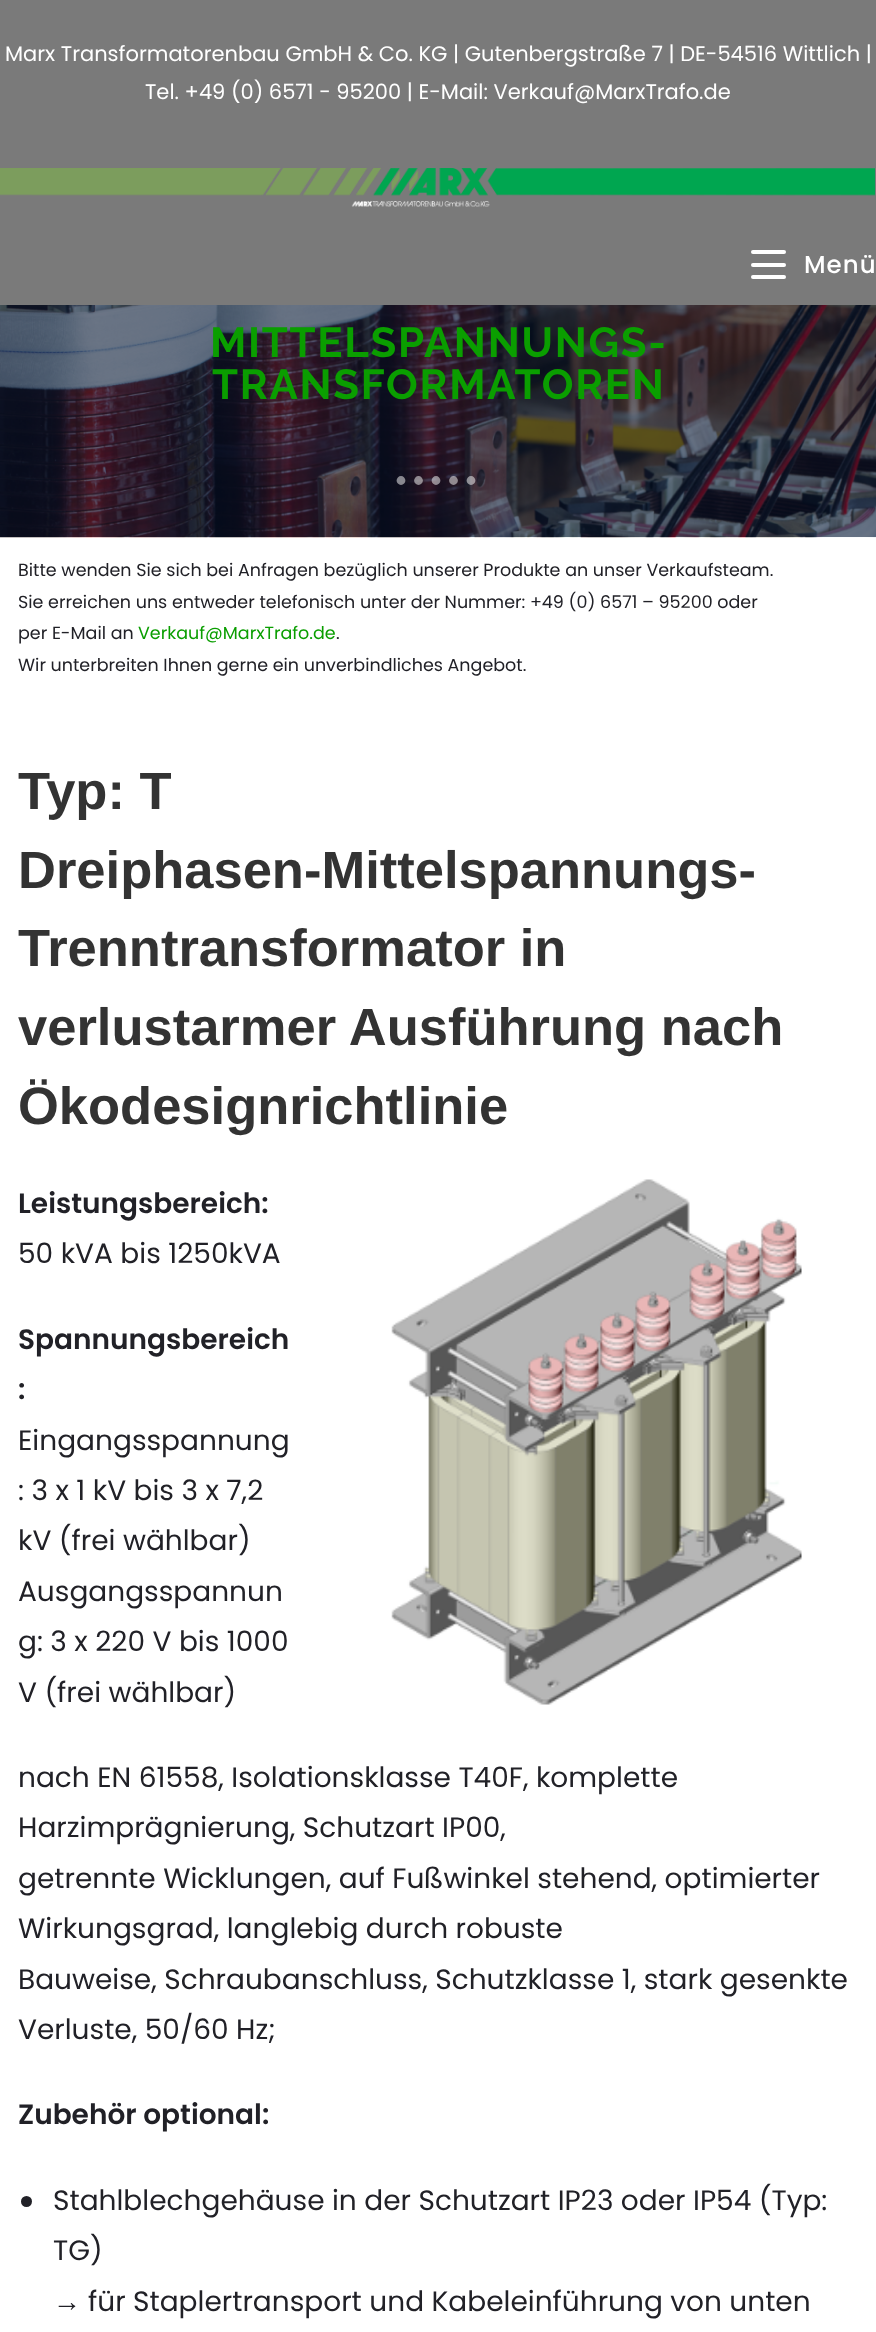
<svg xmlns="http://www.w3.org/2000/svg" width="876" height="2332">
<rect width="100%" height="100%" fill="#fff"/>
<rect width="876" height="305" fill="#7a7a7a"/>
<text x="5" y="61" style="font-family:Poppins;font-size:21px;fill:#fff">Marx Transformatorenbau GmbH &amp; Co. KG | Gutenbergstraße 7 | DE-54516 Wittlich |</text>
<text x="145" y="99" style="font-family:Poppins;font-size:21px;fill:#fff">Tel. +49 (0) 6571 - 95200 | E-Mail: Verkauf@MarxTrafo.de</text>
<image x="0" y="168" width="875" height="39" href="media/1.png"/>
<rect x="751" y="263" width="35" height="4" rx="2" fill="#fff"/>
<rect x="751" y="250" width="35" height="4" rx="2" fill="#fff"/>
<rect x="751" y="275" width="35" height="4" rx="2" fill="#fff"/>
<text x="804" y="273" style="font-family:Poppins;font-size:24.5px;font-weight:500;letter-spacing:1px;fill:#fff">Menü</text>
<image x="0" y="305" width="876" height="233" href="media/2.png"/>
<text x="210" y="357" style="font-family:Raleway;font-size:42px;font-weight:bold;letter-spacing:1.75px;fill:#0a9e00">MITTELSPANNUNGS-</text>
<text x="212" y="399" style="font-family:Raleway;font-size:42px;font-weight:bold;letter-spacing:1.75px;fill:#0a9e00">TRANSFORMATOREN</text>
<path d="M401 480.5h75" fill="none" stroke="#ffffff80" stroke-width="8.8" stroke-linecap="round" stroke-dasharray="0 17.5"/>
<text x="18" y="576" style="font-family:Poppins;font-size:17.5px;fill:#212127">Bitte wenden Sie sich bei Anfragen bezüglich unserer Produkte an unser Verkaufsteam.</text>
<text x="18" y="608" style="font-family:Poppins;font-size:17.5px;fill:#212127">Sie erreichen uns entweder telefonisch unter der Nummer: +49 (0) 6571 – 95200 oder</text>
<text x="18" y="639" style="font-family:Poppins;font-size:17.5px;fill:#212127">per E-Mail an</text>
<text x="138" y="639" style="font-family:Poppins;font-size:17.5px;fill:#0a9e00">Verkauf@MarxTrafo.de</text>
<text x="336" y="639" style="font-family:Poppins;font-size:17.5px;fill:#212127">.</text>
<text x="18" y="671" style="font-family:Poppins;font-size:17.5px;fill:#212127">Wir unterbreiten Ihnen gerne ein unverbindliches Angebot.</text>
<text x="18" y="809" style="font-family:Liberation Sans;font-size:52.5px;font-weight:bold;fill:#333">Typ: T</text>
<text x="18" y="888" style="font-family:Liberation Sans;font-size:52.5px;font-weight:bold;fill:#333">Dreiphasen-Mittelspannungs-</text>
<text x="18" y="966" style="font-family:Liberation Sans;font-size:52.5px;font-weight:bold;fill:#333">Trenntransformator in</text>
<text x="18" y="1045" style="font-family:Liberation Sans;font-size:52.5px;font-weight:bold;fill:#333">verlustarmer Ausführung nach</text>
<text x="18" y="1124" style="font-family:Liberation Sans;font-size:52.5px;font-weight:bold;fill:#333">Ökodesignrichtlinie</text>
<text x="18" y="1213" style="font-family:Poppins;font-size:28px;font-weight:600;fill:#212127">Leistungsbereich:</text>
<image x="391" y="1179" width="411" height="526" href="media/3.png"/>
<text x="18" y="1263" style="font-family:Poppins;font-size:28px;fill:#212127">50 kVA bis 1250kVA</text>
<text x="18" y="1349" style="font-family:Poppins;font-size:28px;font-weight:600;fill:#212127">Spannungsbereich</text>
<text x="18" y="1399" style="font-family:Poppins;font-size:28px;font-weight:600;fill:#212127">:</text>
<text x="18" y="1450" style="font-family:Poppins;font-size:28px;fill:#212127">Eingangsspannung</text>
<text x="18" y="1500" style="font-family:Poppins;font-size:28px;fill:#212127">: 3 x 1 kV bis 3 x 7,2</text>
<text x="18" y="1550" style="font-family:Poppins;font-size:28px;fill:#212127">kV (frei wählbar)</text>
<text x="18" y="1601" style="font-family:Poppins;font-size:28px;fill:#212127">Ausgangsspannun</text>
<text x="18" y="1651" style="font-family:Poppins;font-size:28px;fill:#212127">g: 3 x 220 V bis 1000</text>
<text x="18" y="1702" style="font-family:Poppins;font-size:28px;fill:#212127">V (frei wählbar)</text>
<text x="18" y="1787" style="font-family:Poppins;font-size:28px;fill:#212127">nach EN 61558, Isolationsklasse T40F, komplette</text>
<text x="18" y="1837" style="font-family:Poppins;font-size:28px;fill:#212127">Harzimprägnierung, Schutzart IP00,</text>
<text x="18" y="1888" style="font-family:Poppins;font-size:28px;fill:#212127">getrennte Wicklungen, auf Fußwinkel stehend, optimierter</text>
<text x="18" y="1938" style="font-family:Poppins;font-size:28px;fill:#212127">Wirkungsgrad, langlebig durch robuste</text>
<text x="18" y="1989" style="font-family:Poppins;font-size:28px;fill:#212127">Bauweise, Schraubanschluss, Schutzklasse 1, stark gesenkte</text>
<text x="18" y="2039" style="font-family:Poppins;font-size:28px;fill:#212127">Verluste, 50/60 Hz;</text>
<text x="18" y="2124" style="font-family:Poppins;font-size:28px;font-weight:600;fill:#212127">Zubehör optional:</text>
<circle cx="26.5" cy="2201.5" r="5.5" fill="#212127"/>
<text x="53" y="2210" style="font-family:Poppins;font-size:28px;fill:#212127">Stahlblechgehäuse in der Schutzart IP23 oder IP54 (Typ:</text>
<text x="53" y="2260" style="font-family:Poppins;font-size:28px;fill:#212127">TG)</text>
<text x="53" y="2311" style="font-family:Liberation Serif;font-size:28px;fill:#212127">→</text>
<text x="88" y="2311" style="font-family:Poppins;font-size:28px;fill:#212127">für Staplertransport und Kabeleinführung von unten</text>
</svg>
